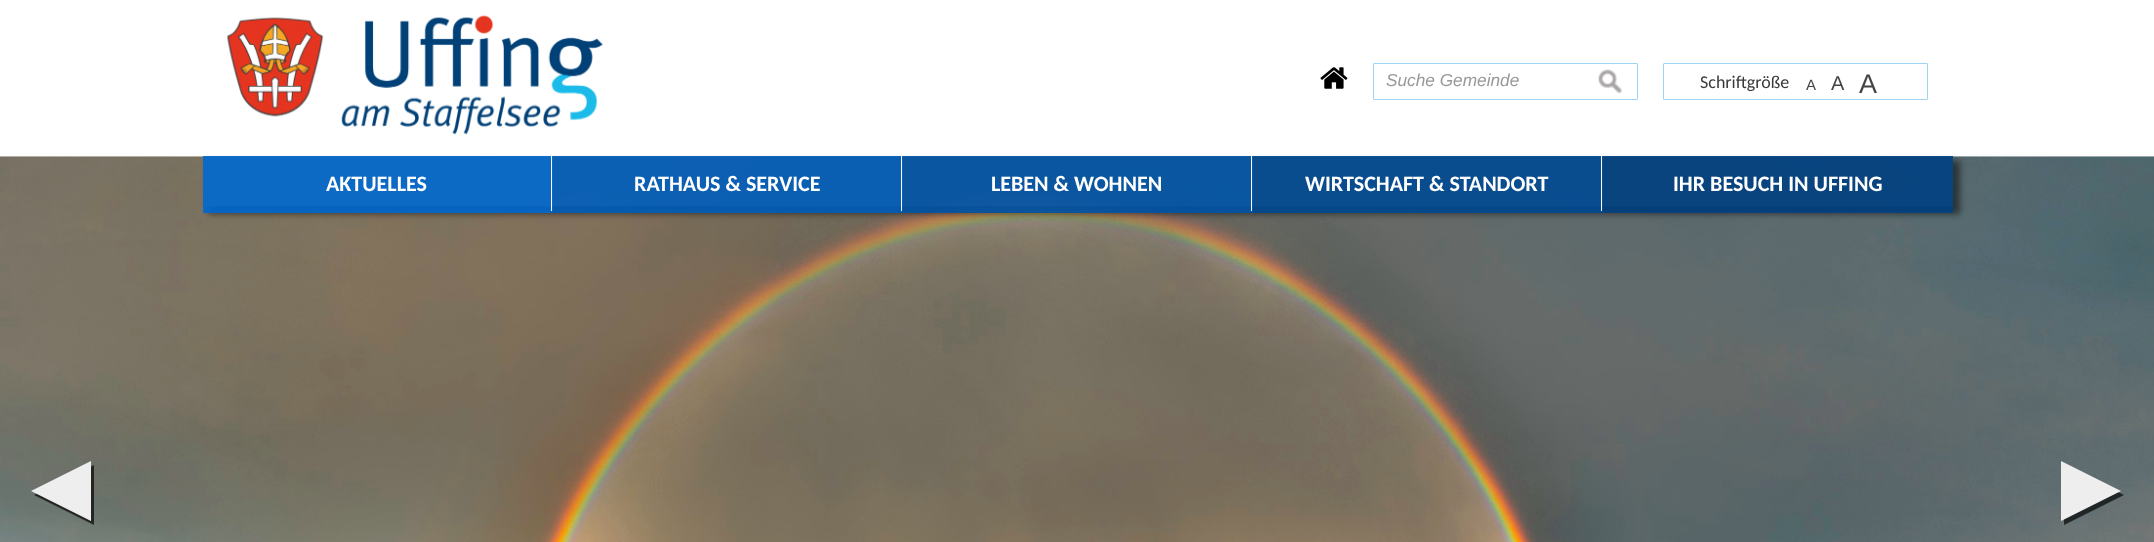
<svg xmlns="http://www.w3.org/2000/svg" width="2154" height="542">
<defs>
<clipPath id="clip1"><path d="M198 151h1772v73h-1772zm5 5h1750v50h-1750z" clip-rule="evenodd"/></clipPath>
</defs>
<rect width="100%" height="100%" fill="#fff"/>
<image x="227" y="15" width="376" height="120" href="media/1.png"/>
<image x="1320" y="67" width="28" height="22" href="media/2.png"/>
<rect x="1373.5" y="63.5" width="264" height="36" rx="0.5" fill="none" stroke="#9dd4f4"/>
<text x="1386" y="86" style="font-family:Liberation Sans;font-size:17.25px;font-style:italic;fill:#999">Suche Gemeinde</text>
<image x="1598" y="69" width="24" height="24" href="media/3.png"/>
<rect x="1663.5" y="63.5" width="264" height="36" rx="0.5" fill="none" stroke="#9dd4f4"/>
<text x="1700" y="88" style="font-family:Carlito;font-size:18px;fill:#3a3a3a">Schriftgröße</text>
<text x="1806" y="90" style="font-family:Liberation Sans;font-size:15px;fill:#454545">A</text>
<text x="1831" y="90" style="font-family:Liberation Sans;font-size:20px;fill:#454545">A</text>
<text x="1859" y="93" style="font-family:Liberation Sans;font-size:27px;fill:#454545">A</text>
<image x="0" y="156" width="2154" height="386" href="media/4.png"/>
<g clip-path="url(#clip1)">
<rect x="208" y="161" width="1752" height="53" fill="#00000080" filter="blur(3px)"/>
</g>
<rect x="203" y="156" width="350" height="57" fill="#0068cfe6"/>
<rect x="551" y="156" width="1" height="55" fill="#fff"/>
<text x="326" y="191" style="font-family:Carlito;font-size:22px;font-weight:bold;fill:#fff">AKTUELLES</text>
<rect x="553" y="156" width="350" height="57" fill="#005ebce6"/>
<rect x="901" y="156" width="1" height="55" fill="#fff"/>
<text x="634" y="191" style="font-family:Carlito;font-size:22px;font-weight:bold;fill:#fff">RATHAUS &amp; SERVICE</text>
<rect x="903" y="156" width="350" height="57" fill="#0054a8e6"/>
<rect x="1251" y="156" width="1" height="55" fill="#fff"/>
<text x="991" y="191" style="font-family:Carlito;font-size:22px;font-weight:bold;fill:#fff">LEBEN &amp; WOHNEN</text>
<rect x="1253" y="156" width="350" height="57" fill="#004a94e6"/>
<rect x="1601" y="156" width="1" height="55" fill="#fff"/>
<text x="1305" y="191" style="font-family:Carlito;font-size:22px;font-weight:bold;fill:#fff">WIRTSCHAFT &amp; STANDORT</text>
<rect x="1603" y="156" width="350" height="57" fill="#004081e6"/>
<text x="1673" y="191" style="font-family:Carlito;font-size:22px;font-weight:bold;fill:#fff">IHR BESUCH IN UFFING</text>
<path d="M94 465l-60 30l60 30z" fill="#000000ab"/>
<path d="M91 461l-60 30l60 30z" fill="#eee"/>
<path d="M2064 465l60 30l-60 30z" fill="#000000ab"/>
<path d="M2061 461l60 30l-60 30z" fill="#eee"/>
</svg>
